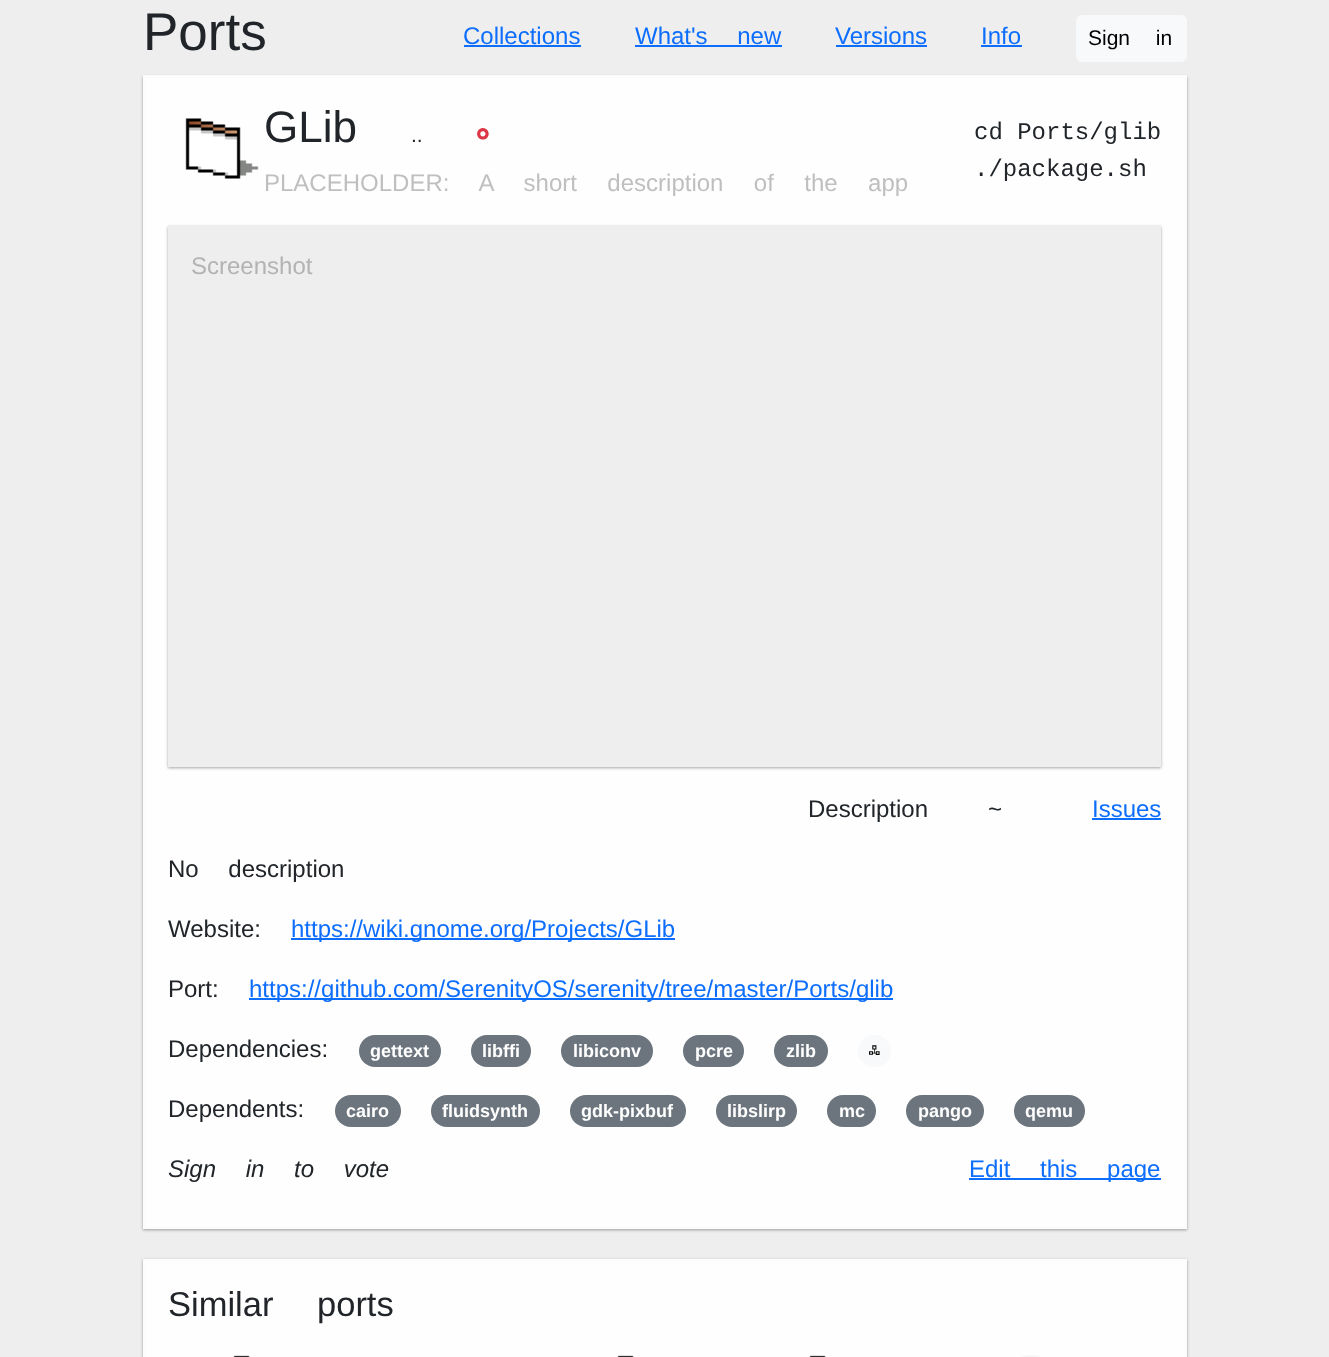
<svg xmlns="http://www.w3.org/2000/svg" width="1329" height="1357">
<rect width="100%" height="100%" fill="#eee"/>
<text x="143" y="50" style="font-family:Liberation Sans;font-size:53px;fill:#212529">Ports</text>
<text x="463" y="44" style="font-family:Liberation Sans;font-size:24px;fill:#0d6efd">Collections</text>
<rect x="464" y="45" width="117" height="2" fill="#0d6efd"/>
<text x="635" y="44" word-spacing="23" style="font-family:Liberation Sans;font-size:24px;fill:#0d6efd">What's new</text>
<rect x="635" y="45" width="147" height="2" fill="#0d6efd"/>
<text x="835" y="44" style="font-family:Liberation Sans;font-size:24px;fill:#0d6efd">Versions</text>
<rect x="836" y="45" width="91" height="2" fill="#0d6efd"/>
<text x="981" y="44" style="font-family:Liberation Sans;font-size:24px;fill:#0d6efd">Info</text>
<rect x="981" y="45" width="41" height="2" fill="#0d6efd"/>
<rect x="1077" y="16" width="109" height="45" rx="5" fill="#f8f9fa" stroke="#f8f9fa" stroke-width="2"/>
<text x="1088" y="45" word-spacing="20" style="font-family:Liberation Sans;font-size:21px;fill:#000">Sign in</text>
<rect x="143" y="77" width="1044" height="1153" fill="#22191966" filter="blur(1.5px)"/>
<rect x="144.5" y="76.5" width="1041" height="1151" fill="#fefefe" stroke="#fcfcfc" stroke-width="3"/>
<image x="185" y="118" width="74" height="61" href="media/1.png"/>
<text x="264" y="142" style="font-family:Liberation Sans;font-size:44px;fill:#212529">GLib</text>
<text x="477" y="142" style="font-family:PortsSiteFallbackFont;font-size:21px;fill:#dc3545">🞉</text>
<text x="411" y="142" style="font-family:Liberation Sans;font-size:21px;fill:#212529">..</text>
<text x="264" y="191" word-spacing="23.75" style="font-family:Liberation Sans;font-size:24px;fill:#bfbfbf">PLACEHOLDER: A short description of the app</text>
<text x="974" y="139" style="font-family:Liberation Mono;font-size:24px;fill:#212529">cd Ports/glib</text>
<text x="974" y="176" style="font-family:Liberation Mono;font-size:24px;fill:#212529">./package.sh</text>
<rect x="168" y="227" width="993" height="541" fill="#22191966" filter="blur(1.5px)"/>
<rect x="168" y="225" width="993" height="542" fill="#eee"/>
<text x="191" y="274" style="font-family:Liberation Sans;font-size:24px;fill:#b3b3b3">Screenshot</text>
<text x="808" y="817" style="font-family:Liberation Sans;font-size:24px;fill:#212529">Description</text>
<text x="988" y="817" style="font-family:Liberation Sans;font-size:24px;fill:#212529">~</text>
<text x="1092" y="817" style="font-family:Liberation Sans;font-size:24px;fill:#0d6efd">Issues</text>
<rect x="1092" y="818" width="69" height="2" fill="#0d6efd"/>
<text x="168" y="877" word-spacing="23" style="font-family:Liberation Sans;font-size:24px;fill:#212529">No description</text>
<text x="168" y="937" style="font-family:Liberation Sans;font-size:24px;fill:#212529">Website:</text>
<rect x="291" y="938" width="384" height="2" fill="#0d6efd"/>
<text x="291" y="937" style="font-family:Liberation Sans;font-size:24px;fill:#0d6efd">https://wiki.gnome.org/Projects/GLib</text>
<text x="168" y="997" style="font-family:Liberation Sans;font-size:24px;fill:#212529">Port:</text>
<rect x="249" y="998" width="644" height="2" fill="#0d6efd"/>
<text x="249" y="997" style="font-family:Liberation Sans;font-size:24px;fill:#0d6efd">https://github.com/SerenityOS/serenity/tree/master/Ports/glib</text>
<text x="168" y="1057" style="font-family:Liberation Sans;font-size:24px;fill:#212529">Dependencies:</text>
<rect x="359" y="1035" width="82" height="32" rx="16" fill="#6c757d"/>
<text x="370" y="1057" style="font-family:Liberation Sans;font-size:18px;font-weight:bold;fill:#fff">gettext</text>
<rect x="471" y="1035" width="60" height="32" rx="16" fill="#6c757d"/>
<text x="482" y="1057" style="font-family:Liberation Sans;font-size:18px;font-weight:bold;fill:#fff">libffi</text>
<rect x="561" y="1035" width="92" height="32" rx="16" fill="#6c757d"/>
<text x="573" y="1057" style="font-family:Liberation Sans;font-size:18px;font-weight:bold;fill:#fff">libiconv</text>
<rect x="683" y="1035" width="61" height="32" rx="16" fill="#6c757d"/>
<text x="695" y="1057" style="font-family:Liberation Sans;font-size:18px;font-weight:bold;fill:#fff">pcre</text>
<rect x="774" y="1035" width="54" height="32" rx="16" fill="#6c757d"/>
<text x="786" y="1057" style="font-family:Liberation Sans;font-size:18px;font-weight:bold;fill:#fff">zlib</text>
<rect x="858" y="1035" width="33" height="32" rx="16" fill="#f8f9fa"/>
<text x="869" y="1057" style="font-family:PortsSiteFallbackFont;font-size:18px;font-weight:bold;fill:#000">🖧</text>
<text x="168" y="1117" style="font-family:Liberation Sans;font-size:24px;fill:#212529">Dependents:</text>
<rect x="335" y="1095" width="66" height="32" rx="16" fill="#6c757d"/>
<text x="346" y="1117" style="font-family:Liberation Sans;font-size:18px;font-weight:bold;fill:#fff">cairo</text>
<rect x="431" y="1095" width="109" height="32" rx="16" fill="#6c757d"/>
<text x="442" y="1117" style="font-family:Liberation Sans;font-size:18px;font-weight:bold;fill:#fff">fluidsynth</text>
<rect x="570" y="1095" width="116" height="32" rx="16" fill="#6c757d"/>
<text x="581" y="1117" style="font-family:Liberation Sans;font-size:18px;font-weight:bold;fill:#fff">gdk-pixbuf</text>
<rect x="716" y="1095" width="81" height="32" rx="16" fill="#6c757d"/>
<text x="727" y="1117" style="font-family:Liberation Sans;font-size:18px;font-weight:bold;fill:#fff">libslirp</text>
<rect x="827" y="1095" width="49" height="32" rx="16" fill="#6c757d"/>
<text x="839" y="1117" style="font-family:Liberation Sans;font-size:18px;font-weight:bold;fill:#fff">mc</text>
<rect x="906" y="1095" width="78" height="32" rx="16" fill="#6c757d"/>
<text x="918" y="1117" style="font-family:Liberation Sans;font-size:18px;font-weight:bold;fill:#fff">pango</text>
<rect x="1014" y="1095" width="71" height="32" rx="16" fill="#6c757d"/>
<text x="1025" y="1117" style="font-family:Liberation Sans;font-size:18px;font-weight:bold;fill:#fff">qemu</text>
<text x="168" y="1177" word-spacing="23" style="font-family:Liberation Sans;font-size:24px;font-style:italic;fill:#212529">Sign in to vote</text>
<rect x="969" y="1178" width="192" height="2" fill="#0d6efd"/>
<text x="969" y="1177" word-spacing="23" style="font-family:Liberation Sans;font-size:24px;fill:#0d6efd">Edit this page</text>
<rect x="143" y="1260" width="1044" height="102" fill="#22191966" filter="blur(1.5px)"/>
<rect x="144.5" y="1260.5" width="1041" height="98" fill="#fefefe" stroke="#fcfcfc" stroke-width="3"/>
<text x="168" y="1316" word-spacing="34" style="font-family:Liberation Sans;font-size:34.5px;fill:#212529">Similar ports</text>
<image x="233" y="1355" width="17" height="2" href="media/2.png"/>
<image x="617" y="1355" width="17" height="2" href="media/2.png"/>
<image x="809" y="1355" width="17" height="2" href="media/2.png"/>
<image x="1021" y="1355" width="19" height="2" href="media/3.png"/>
</svg>
